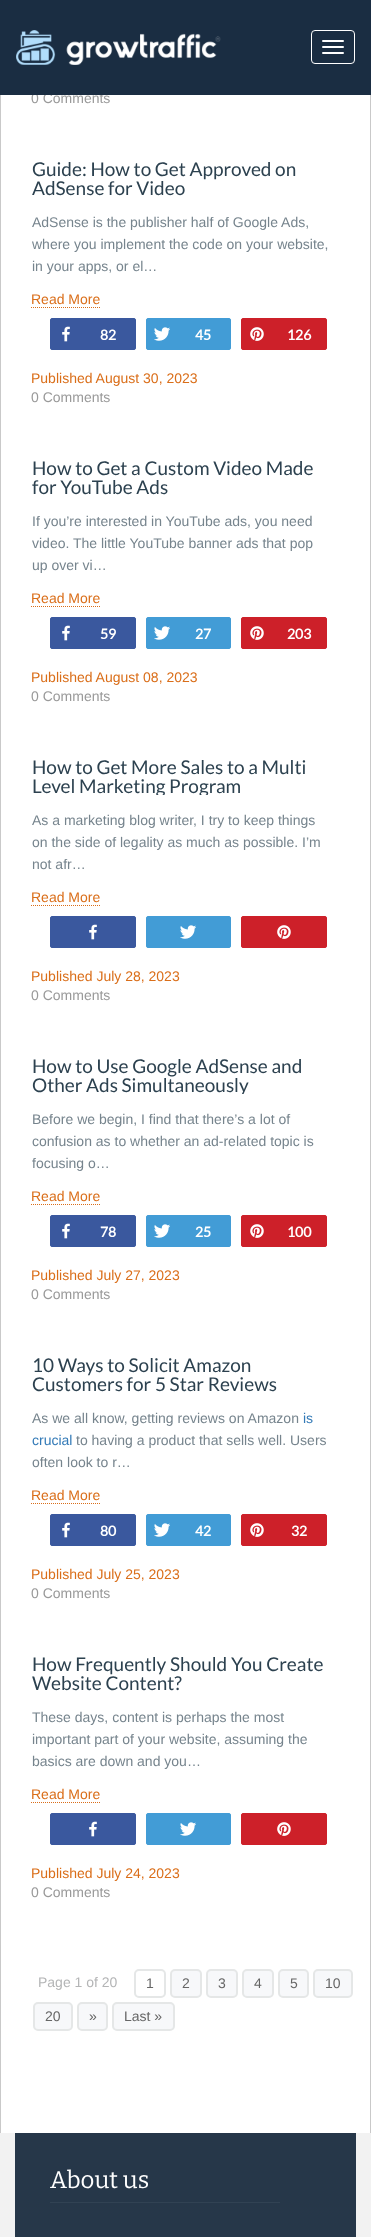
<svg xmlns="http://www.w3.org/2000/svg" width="371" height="2237">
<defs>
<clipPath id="clip1"><rect x="32" y="757" width="300" height="38"/></clipPath>
<clipPath id="clip2"><rect x="32" y="1056" width="300" height="38"/></clipPath>
</defs>
<rect width="100%" height="100%" fill="#f2f2f2"/>
<rect x="1" y="95" width="369" height="2038" fill="#fff"/>
<text x="31" y="103" style="font-family:Liberation Sans;font-size:14px;fill:#999">0 Comments</text>
<rect width="371" height="95" fill="#1a2d42"/>
<image x="16" y="30" width="205" height="35" href="media/1.png"/>
<rect x="311.5" y="30.5" width="43" height="33" rx="3.5" fill="none" stroke="#fff"/>
<rect x="322" y="40" width="22" height="2" rx="1" fill="#fff"/>
<rect x="322" y="46" width="22" height="2" rx="1" fill="#fff"/>
<rect x="322" y="52" width="22" height="2" rx="1" fill="#fff"/>
<rect x="370" y="95" width="1" height="2038" fill="#c9c9c9"/>
<rect y="95" width="1" height="2038" fill="#c9c9c9"/>
<text x="32" y="176" style="font-family:Lato;font-size:19px;fill:#2c414f">Guide: How to Get Approved on</text>
<text x="32" y="195" style="font-family:Lato;font-size:19px;fill:#2c414f">AdSense for Video</text>
<text x="32" y="227" style="font-family:Liberation Sans;font-size:14px;fill:#76848d">AdSense is the publisher half of Google Ads,</text>
<text x="32" y="249" style="font-family:Liberation Sans;font-size:14px;fill:#76848d">where you implement the code on your website,</text>
<text x="32" y="271" style="font-family:Liberation Sans;font-size:14px;fill:#76848d">in your apps, or el…</text>
<path d="M31 307.5h70" fill="none" stroke="#da6e19" stroke-dasharray="1 1"/>
<text x="31" y="304" style="font-family:Liberation Sans;font-size:14px;fill:#da6e19">Read More</text>
<rect x="50.5" y="318.5" width="85" height="31" rx="1.5" fill="#3a589e" stroke="#3a589e"/>
<image x="62" y="326" width="8" height="16" href="media/2.png"/>
<text x="100" y="340" style="font-family:Lato;font-size:14px;font-weight:bold;fill:#fff">82</text>
<rect x="146.5" y="318.5" width="84" height="31" rx="1.5" fill="#429cd6" stroke="#429cd6"/>
<image x="154" y="327" width="16" height="14" href="media/3.png"/>
<text x="195" y="340" style="font-family:Lato;font-size:14px;font-weight:bold;fill:#fff">45</text>
<rect x="241.5" y="318.5" width="85" height="31" rx="1.5" fill="#cd2029" stroke="#cd2029"/>
<image x="250" y="327" width="14" height="14" href="media/4.png"/>
<text x="287" y="340" style="font-family:Lato;font-size:14px;font-weight:bold;fill:#fff">126</text>
<text x="31" y="383" style="font-family:Liberation Sans;font-size:14px;fill:#da6e19">Published August 30, 2023</text>
<text x="31" y="402" style="font-family:Liberation Sans;font-size:14px;fill:#999">0 Comments</text>
<text x="32" y="475" style="font-family:Lato;font-size:19px;fill:#2c414f">How to Get a Custom Video Made</text>
<text x="32" y="494" style="font-family:Lato;font-size:19px;fill:#2c414f">for YouTube Ads</text>
<text x="32" y="526" style="font-family:Liberation Sans;font-size:14px;fill:#76848d">If you’re interested in YouTube ads, you need</text>
<text x="32" y="548" style="font-family:Liberation Sans;font-size:14px;fill:#76848d">video. The little YouTube banner ads that pop</text>
<text x="32" y="570" style="font-family:Liberation Sans;font-size:14px;fill:#76848d">up over vi…</text>
<path d="M31 606.5h70" fill="none" stroke="#da6e19" stroke-dasharray="1 1"/>
<text x="31" y="603" style="font-family:Liberation Sans;font-size:14px;fill:#da6e19">Read More</text>
<rect x="50.5" y="617.5" width="85" height="31" rx="1.5" fill="#3a589e" stroke="#3a589e"/>
<image x="62" y="625" width="8" height="16" href="media/2.png"/>
<text x="100" y="639" style="font-family:Lato;font-size:14px;font-weight:bold;fill:#fff">59</text>
<rect x="146.5" y="617.5" width="84" height="31" rx="1.5" fill="#429cd6" stroke="#429cd6"/>
<image x="154" y="626" width="16" height="14" href="media/3.png"/>
<text x="195" y="639" style="font-family:Lato;font-size:14px;font-weight:bold;fill:#fff">27</text>
<rect x="241.5" y="617.5" width="85" height="31" rx="1.5" fill="#cd2029" stroke="#cd2029"/>
<image x="250" y="626" width="14" height="14" href="media/4.png"/>
<text x="287" y="639" style="font-family:Lato;font-size:14px;font-weight:bold;fill:#fff">203</text>
<text x="31" y="682" style="font-family:Liberation Sans;font-size:14px;fill:#da6e19">Published August 08, 2023</text>
<text x="31" y="701" style="font-family:Liberation Sans;font-size:14px;fill:#999">0 Comments</text>
<text x="32" y="774" style="font-family:Lato;font-size:19px;fill:#2c414f">How to Get More Sales to a Multi</text>
<g clip-path="url(#clip1)">
<text x="32" y="793" style="font-family:Lato;font-size:19px;fill:#2c414f">Level Marketing Program</text>
</g>
<text x="32" y="825" style="font-family:Liberation Sans;font-size:14px;fill:#76848d">As a marketing blog writer, I try to keep things</text>
<text x="32" y="847" style="font-family:Liberation Sans;font-size:14px;fill:#76848d">on the side of legality as much as possible. I’m</text>
<text x="32" y="869" style="font-family:Liberation Sans;font-size:14px;fill:#76848d">not afr…</text>
<path d="M31 905.5h70" fill="none" stroke="#da6e19" stroke-dasharray="1 1"/>
<text x="31" y="902" style="font-family:Liberation Sans;font-size:14px;fill:#da6e19">Read More</text>
<rect x="50.5" y="916.5" width="85" height="31" rx="1.5" fill="#3a589e" stroke="#3a589e"/>
<image x="89" y="924" width="8" height="16" href="media/2.png"/>
<rect x="146.5" y="916.5" width="84" height="31" rx="1.5" fill="#429cd6" stroke="#429cd6"/>
<image x="180" y="925" width="16" height="14" href="media/3.png"/>
<rect x="241.5" y="916.5" width="85" height="31" rx="1.5" fill="#cd2029" stroke="#cd2029"/>
<image x="277" y="925" width="14" height="14" href="media/4.png"/>
<text x="31" y="981" style="font-family:Liberation Sans;font-size:14px;fill:#da6e19">Published July 28, 2023</text>
<text x="31" y="1000" style="font-family:Liberation Sans;font-size:14px;fill:#999">0 Comments</text>
<text x="32" y="1073" style="font-family:Lato;font-size:19px;fill:#2c414f">How to Use Google AdSense and</text>
<g clip-path="url(#clip2)">
<text x="32" y="1092" style="font-family:Lato;font-size:19px;fill:#2c414f">Other Ads Simultaneously</text>
</g>
<text x="32" y="1124" style="font-family:Liberation Sans;font-size:14px;fill:#76848d">Before we begin, I find that there’s a lot of</text>
<text x="32" y="1146" style="font-family:Liberation Sans;font-size:14px;fill:#76848d">confusion as to whether an ad-related topic is</text>
<text x="32" y="1168" style="font-family:Liberation Sans;font-size:14px;fill:#76848d">focusing o…</text>
<path d="M31 1204.5h70" fill="none" stroke="#da6e19" stroke-dasharray="1 1"/>
<text x="31" y="1201" style="font-family:Liberation Sans;font-size:14px;fill:#da6e19">Read More</text>
<rect x="50.5" y="1215.5" width="85" height="31" rx="1.5" fill="#3a589e" stroke="#3a589e"/>
<image x="62" y="1223" width="8" height="16" href="media/2.png"/>
<text x="100" y="1237" style="font-family:Lato;font-size:14px;font-weight:bold;fill:#fff">78</text>
<rect x="146.5" y="1215.5" width="84" height="31" rx="1.5" fill="#429cd6" stroke="#429cd6"/>
<image x="154" y="1224" width="16" height="14" href="media/3.png"/>
<text x="195" y="1237" style="font-family:Lato;font-size:14px;font-weight:bold;fill:#fff">25</text>
<rect x="241.5" y="1215.5" width="85" height="31" rx="1.5" fill="#cd2029" stroke="#cd2029"/>
<image x="250" y="1224" width="14" height="14" href="media/4.png"/>
<text x="287" y="1237" style="font-family:Lato;font-size:14px;font-weight:bold;fill:#fff">100</text>
<text x="31" y="1280" style="font-family:Liberation Sans;font-size:14px;fill:#da6e19">Published July 27, 2023</text>
<text x="31" y="1299" style="font-family:Liberation Sans;font-size:14px;fill:#999">0 Comments</text>
<text x="32" y="1372" style="font-family:Lato;font-size:19px;fill:#2c414f">10 Ways to Solicit Amazon</text>
<text x="32" y="1391" style="font-family:Lato;font-size:19px;fill:#2c414f">Customers for 5 Star Reviews</text>
<text x="32" y="1423" style="font-family:Liberation Sans;font-size:14px;fill:#76848d">As we all know, getting reviews on Amazon</text>
<text x="303" y="1423" style="font-family:Liberation Sans;font-size:14px;fill:#337ab7">is</text>
<text x="32" y="1445" style="font-family:Liberation Sans;font-size:14px;fill:#337ab7">crucial</text>
<text x="76" y="1445" style="font-family:Liberation Sans;font-size:14px;fill:#76848d">to having a product that sells well. Users</text>
<text x="32" y="1467" style="font-family:Liberation Sans;font-size:14px;fill:#76848d">often look to r…</text>
<path d="M31 1503.5h70" fill="none" stroke="#da6e19" stroke-dasharray="1 1"/>
<text x="31" y="1500" style="font-family:Liberation Sans;font-size:14px;fill:#da6e19">Read More</text>
<rect x="50.5" y="1514.5" width="85" height="31" rx="1.5" fill="#3a589e" stroke="#3a589e"/>
<image x="62" y="1522" width="8" height="16" href="media/2.png"/>
<text x="100" y="1536" style="font-family:Lato;font-size:14px;font-weight:bold;fill:#fff">80</text>
<rect x="146.5" y="1514.5" width="84" height="31" rx="1.5" fill="#429cd6" stroke="#429cd6"/>
<image x="154" y="1523" width="16" height="14" href="media/3.png"/>
<text x="195" y="1536" style="font-family:Lato;font-size:14px;font-weight:bold;fill:#fff">42</text>
<rect x="241.5" y="1514.5" width="85" height="31" rx="1.5" fill="#cd2029" stroke="#cd2029"/>
<image x="250" y="1523" width="14" height="14" href="media/4.png"/>
<text x="291" y="1536" style="font-family:Lato;font-size:14px;font-weight:bold;fill:#fff">32</text>
<text x="31" y="1579" style="font-family:Liberation Sans;font-size:14px;fill:#da6e19">Published July 25, 2023</text>
<text x="31" y="1598" style="font-family:Liberation Sans;font-size:14px;fill:#999">0 Comments</text>
<text x="32" y="1671" style="font-family:Lato;font-size:19px;fill:#2c414f">How Frequently Should You Create</text>
<text x="32" y="1690" style="font-family:Lato;font-size:19px;fill:#2c414f">Website Content?</text>
<text x="32" y="1722" style="font-family:Liberation Sans;font-size:14px;fill:#76848d">These days, content is perhaps the most</text>
<text x="32" y="1744" style="font-family:Liberation Sans;font-size:14px;fill:#76848d">important part of your website, assuming the</text>
<text x="32" y="1766" style="font-family:Liberation Sans;font-size:14px;fill:#76848d">basics are down and you…</text>
<path d="M31 1802.5h70" fill="none" stroke="#da6e19" stroke-dasharray="1 1"/>
<text x="31" y="1799" style="font-family:Liberation Sans;font-size:14px;fill:#da6e19">Read More</text>
<rect x="50.5" y="1813.5" width="85" height="31" rx="1.5" fill="#3a589e" stroke="#3a589e"/>
<image x="89" y="1821" width="8" height="16" href="media/2.png"/>
<rect x="146.5" y="1813.5" width="84" height="31" rx="1.5" fill="#429cd6" stroke="#429cd6"/>
<image x="180" y="1822" width="16" height="14" href="media/3.png"/>
<rect x="241.5" y="1813.5" width="85" height="31" rx="1.5" fill="#cd2029" stroke="#cd2029"/>
<image x="277" y="1822" width="14" height="14" href="media/4.png"/>
<text x="31" y="1878" style="font-family:Liberation Sans;font-size:14px;fill:#da6e19">Published July 24, 2023</text>
<text x="31" y="1897" style="font-family:Liberation Sans;font-size:14px;fill:#999">0 Comments</text>
<text x="38" y="1987" style="font-family:Liberation Sans;font-size:14px;fill:#b4b5b6">Page 1 of 20</text>
<rect x="135" y="1970" width="30" height="27" rx="4" fill="none" stroke="#e5e7e7" stroke-width="2"/>
<text x="146" y="1988" style="font-family:Liberation Sans;font-size:14px;fill:#666">1</text>
<rect x="171" y="1970" width="30" height="27" rx="4" fill="#f7f8fa" stroke="#e5e7e7" stroke-width="2"/>
<text x="182" y="1988" style="font-family:Liberation Sans;font-size:14px;fill:#666">2</text>
<rect x="207" y="1970" width="30" height="27" rx="4" fill="#f7f8fa" stroke="#e5e7e7" stroke-width="2"/>
<text x="218" y="1988" style="font-family:Liberation Sans;font-size:14px;fill:#666">3</text>
<rect x="243" y="1970" width="30" height="27" rx="4" fill="#f7f8fa" stroke="#e5e7e7" stroke-width="2"/>
<text x="254" y="1988" style="font-family:Liberation Sans;font-size:14px;fill:#666">4</text>
<rect x="279" y="1970" width="29" height="27" rx="4" fill="#f7f8fa" stroke="#e5e7e7" stroke-width="2"/>
<text x="290" y="1988" style="font-family:Liberation Sans;font-size:14px;fill:#666">5</text>
<rect x="314" y="1970" width="38" height="27" rx="4" fill="#f7f8fa" stroke="#e5e7e7" stroke-width="2"/>
<text x="325" y="1988" style="font-family:Liberation Sans;font-size:14px;fill:#666">10</text>
<rect x="34" y="2003" width="38" height="27" rx="4" fill="#f7f8fa" stroke="#e5e7e7" stroke-width="2"/>
<text x="45" y="2021" style="font-family:Liberation Sans;font-size:14px;fill:#666">20</text>
<rect x="78" y="2003" width="29" height="27" rx="4" fill="#f7f8fa" stroke="#e5e7e7" stroke-width="2"/>
<text x="89" y="2021" style="font-family:Liberation Sans;font-size:14px;fill:#666">»</text>
<rect x="113" y="2003" width="61" height="27" rx="4" fill="#f7f8fa" stroke="#e5e7e7" stroke-width="2"/>
<text x="124" y="2021" style="font-family:Liberation Sans;font-size:14px;fill:#666">Last »</text>
<rect x="15" y="2133" width="341" height="104" fill="#263749"/>
<rect x="50" y="2202" width="230" height="1" fill="#314253"/>
<text x="50" y="2188" style="font-family:Bitter;font-size:24px;font-weight:100;fill:#fff">About us</text>
</svg>
